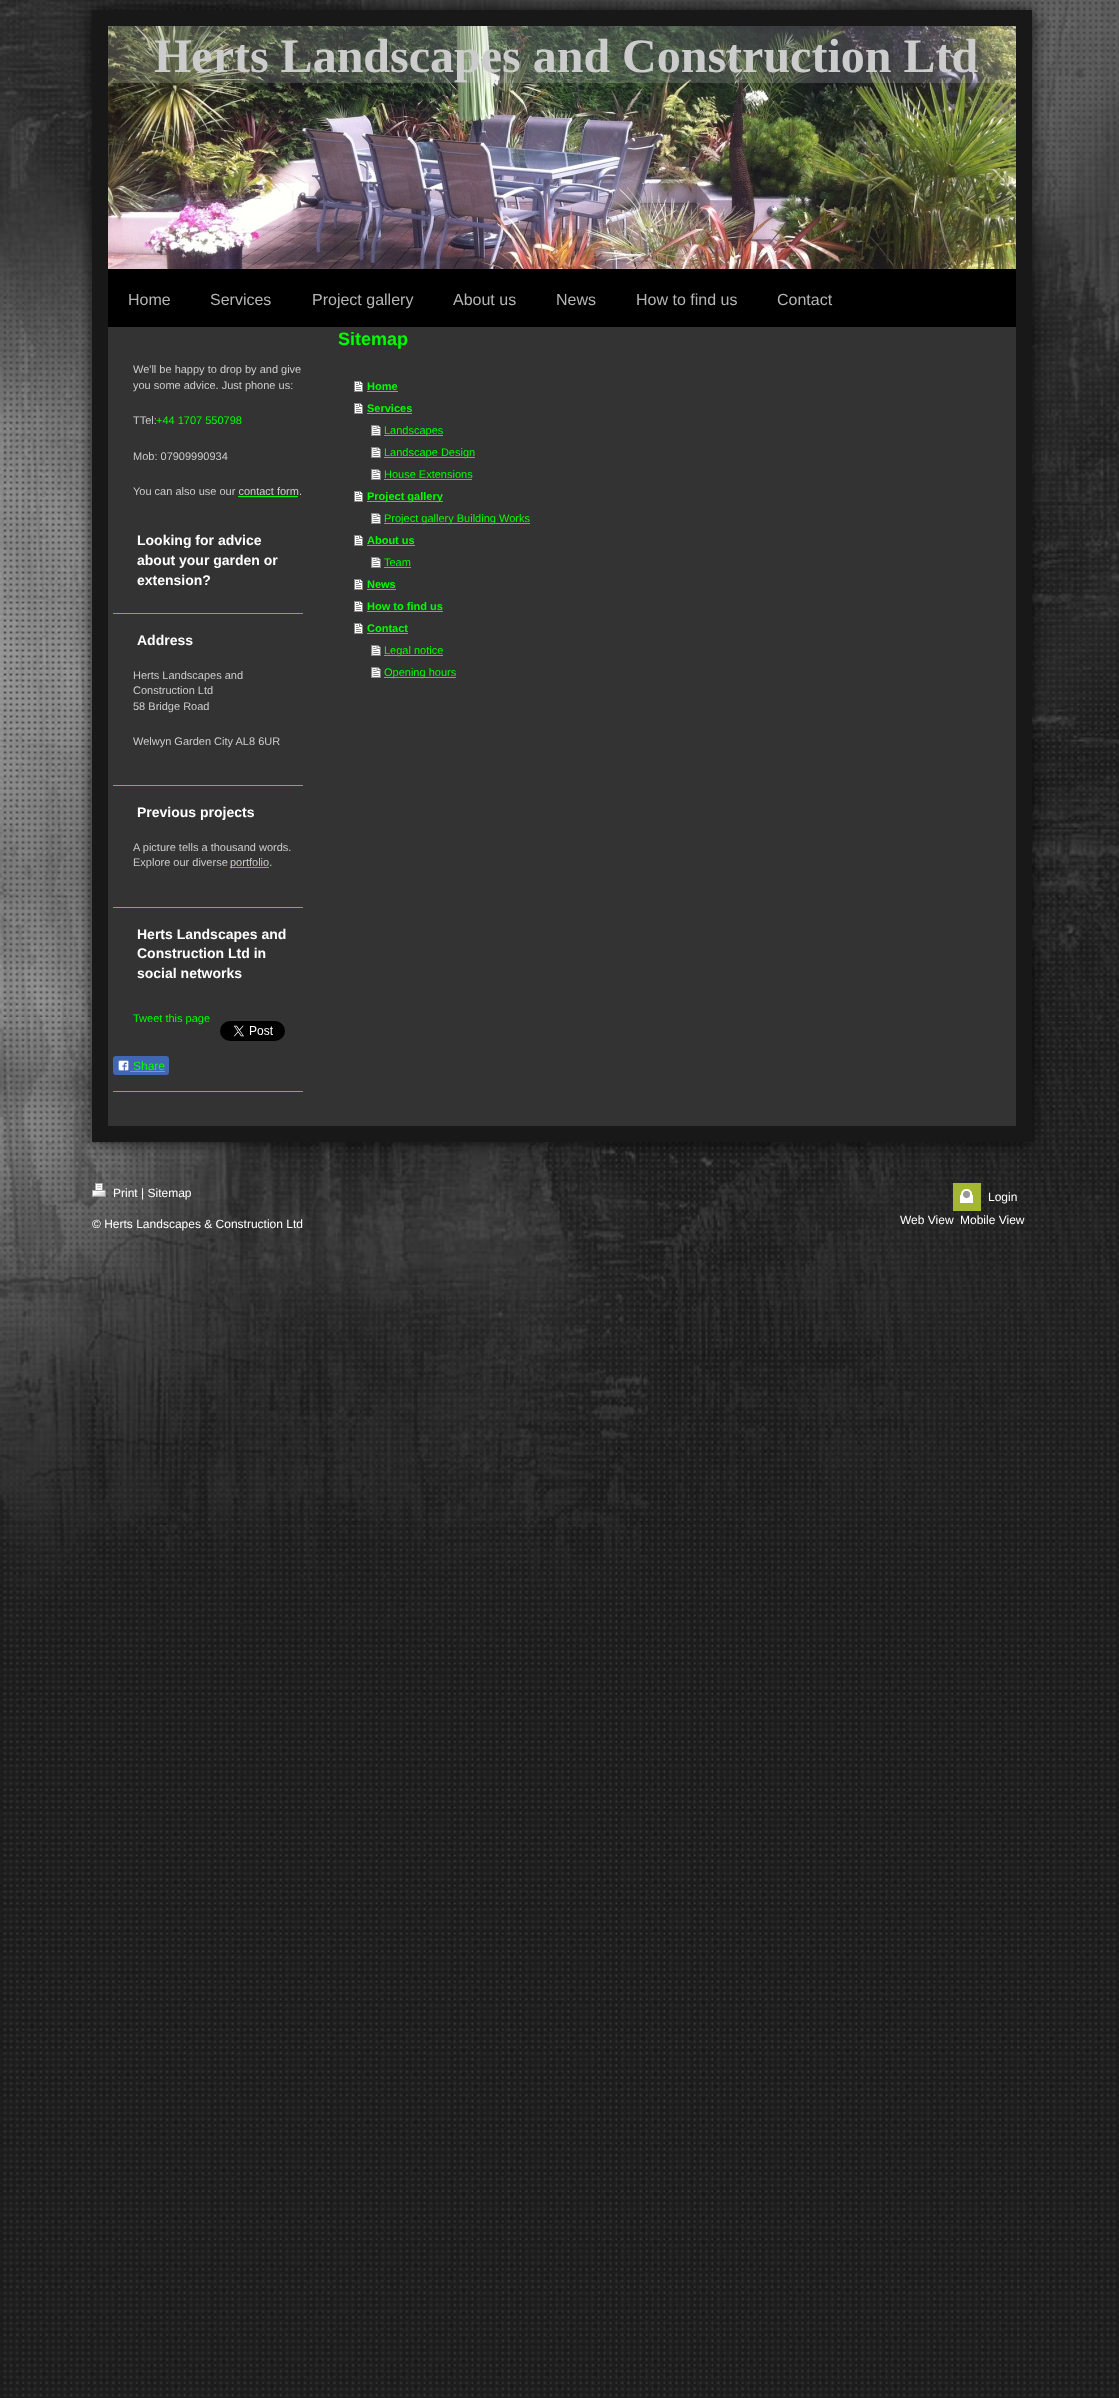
<svg xmlns="http://www.w3.org/2000/svg" width="1119" height="2398">
<rect width="100%" height="100%" fill="#1d1d1d"/>
<image x="0" y="0" width="1119" height="2397" href="media/1.png"/>
<rect x="92" y="10" width="940" height="1132" fill="#000000cc" filter="blur(7.5px)"/>
<rect x="108" y="327" width="908" height="799" fill="#333"/>
<rect x="100" y="18" width="924" height="1116" fill="none" stroke="#181818" stroke-width="16"/>
<image x="108" y="26" width="908" height="243" href="media/2.png"/>
<rect x="108" y="26" width="908" height="57" fill="#cccccc36"/>
<text x="154" y="72" style="font-family:Liberation Serif;font-size:48px;font-weight:bold;fill:#ccc">Herts Landscapes and Construction Ltd</text>
<rect x="108" y="269" width="908" height="58" fill="#000"/>
<text x="128" y="305" style="font-family:Liberation Sans;font-size:16px;fill:#b5b5b5">Home</text>
<text x="210" y="305" style="font-family:Liberation Sans;font-size:16px;fill:#b5b5b5">Services</text>
<text x="312" y="305" style="font-family:Liberation Sans;font-size:16px;fill:#b5b5b5">Project gallery</text>
<text x="453" y="305" style="font-family:Liberation Sans;font-size:16px;fill:#b5b5b5">About us</text>
<text x="556" y="305" style="font-family:Liberation Sans;font-size:16px;fill:#b5b5b5">News</text>
<text x="636" y="305" style="font-family:Liberation Sans;font-size:16px;fill:#b5b5b5">How to find us</text>
<text x="777" y="305" style="font-family:Liberation Sans;font-size:16px;fill:#b5b5b5">Contact</text>
<text x="133" y="373" style="font-family:Liberation Sans;font-size:11px;fill:#ccc">We'll be happy to drop by and give</text>
<text x="133" y="389" style="font-family:Liberation Sans;font-size:11px;fill:#ccc">you some advice. Just phone us:</text>
<text x="133" y="424" style="font-family:Liberation Sans;font-size:11px;fill:#ccc">TTel:</text>
<text x="156" y="424" style="font-family:Liberation Sans;font-size:11px;fill:#02fd02">+44 1707 550798</text>
<text x="133" y="460" style="font-family:Liberation Sans;font-size:11px;fill:#ccc">Mob: 07909990934</text>
<text x="133" y="495" style="font-family:Liberation Sans;font-size:11px;fill:#ccc">You can also use our contact form.</text>
<rect x="238" y="496" width="60" height="1" fill="#02fd02"/>
<text x="137" y="545" style="font-family:Liberation Sans;font-size:14px;font-weight:bold;fill:#fff">Looking for advice</text>
<text x="137" y="565" style="font-family:Liberation Sans;font-size:14px;font-weight:bold;fill:#fff">about your garden or</text>
<text x="137" y="585" style="font-family:Liberation Sans;font-size:14px;font-weight:bold;fill:#fff">extension?</text>
<rect x="113" y="613" width="190" height="1" fill="#02fd02"/>
<text x="137" y="645" style="font-family:Liberation Sans;font-size:14px;font-weight:bold;fill:#fff">Address</text>
<text x="133" y="679" style="font-family:Liberation Sans;font-size:11px;fill:#ccc">Herts Landscapes and</text>
<text x="133" y="694" style="font-family:Liberation Sans;font-size:11px;fill:#ccc">Construction Ltd</text>
<text x="133" y="710" style="font-family:Liberation Sans;font-size:11px;fill:#ccc">58 Bridge Road</text>
<text x="133" y="745" style="font-family:Liberation Sans;font-size:11px;fill:#ccc">Welwyn Garden City AL8 6UR</text>
<rect x="113" y="785" width="190" height="1" fill="#02fd02"/>
<text x="137" y="817" style="font-family:Liberation Sans;font-size:14px;font-weight:bold;fill:#fff">Previous projects</text>
<text x="133" y="851" style="font-family:Liberation Sans;font-size:11px;fill:#ccc">A picture tells a thousand words.</text>
<text x="133" y="866" style="font-family:Liberation Sans;font-size:11px;fill:#ccc">Explore our diverse</text>
<rect x="230" y="867" width="39" height="1" fill="#02fd02"/>
<text x="230" y="866" style="font-family:Liberation Sans;font-size:11px;fill:#ccc">portfolio.</text>
<rect x="113" y="907" width="190" height="1" fill="#02fd02"/>
<text x="137" y="939" style="font-family:Liberation Sans;font-size:14px;font-weight:bold;fill:#fff">Herts Landscapes and</text>
<text x="137" y="958" style="font-family:Liberation Sans;font-size:14px;font-weight:bold;fill:#fff">Construction Ltd in</text>
<text x="137" y="978" style="font-family:Liberation Sans;font-size:14px;font-weight:bold;fill:#fff">social networks</text>
<text x="133" y="1022" style="font-family:Liberation Sans;font-size:11px;fill:#02fd02">Tweet this page</text>
<image x="220" y="1021" width="65" height="20" href="media/3.png"/>
<rect x="113" y="1056" width="56" height="19" rx="3" fill="#4267b2"/>
<image x="118" y="1060" width="11" height="11" href="media/4.png"/>
<text x="133" y="1070" style="font-family:Liberation Sans;font-size:12px;fill:#02fd02">Share</text>
<rect x="130" y="1071" width="35" height="1" fill="#02fd02"/>
<rect x="113" y="1091" width="190" height="1" fill="#02fd02"/>
<text x="338" y="345" style="font-family:Liberation Sans;font-size:18px;font-weight:bold;fill:#02fd02">Sitemap</text>
<image x="354" y="381" width="9" height="11" href="media/5.png"/>
<text x="367" y="390" style="font-family:Liberation Sans;font-size:11px;font-weight:bold;fill:#02fd02">Home</text>
<rect x="367" y="391" width="31" height="1" fill="#02fd02"/>
<image x="354" y="403" width="9" height="11" href="media/5.png"/>
<text x="367" y="412" style="font-family:Liberation Sans;font-size:11px;font-weight:bold;fill:#02fd02">Services</text>
<rect x="367" y="413" width="45" height="1" fill="#02fd02"/>
<image x="371" y="425" width="10" height="11" href="media/6.png"/>
<rect x="384" y="435" width="59" height="1" fill="#02fd02"/>
<text x="384" y="434" style="font-family:Liberation Sans;font-size:11px;fill:#02fd02">Landscapes</text>
<image x="371" y="447" width="10" height="11" href="media/6.png"/>
<rect x="384" y="457" width="91" height="1" fill="#02fd02"/>
<text x="384" y="456" style="font-family:Liberation Sans;font-size:11px;fill:#02fd02">Landscape Design</text>
<image x="371" y="469" width="10" height="11" href="media/6.png"/>
<text x="384" y="478" style="font-family:Liberation Sans;font-size:11px;fill:#02fd02">House Extensions</text>
<rect x="384" y="479" width="88" height="1" fill="#02fd02"/>
<image x="354" y="491" width="9" height="11" href="media/5.png"/>
<rect x="367" y="501" width="76" height="1" fill="#02fd02"/>
<text x="367" y="500" style="font-family:Liberation Sans;font-size:11px;font-weight:bold;fill:#02fd02">Project gallery</text>
<image x="371" y="513" width="10" height="11" href="media/6.png"/>
<rect x="384" y="523" width="146" height="1" fill="#02fd02"/>
<text x="384" y="522" style="font-family:Liberation Sans;font-size:11px;fill:#02fd02">Project gallery Building Works</text>
<image x="354" y="535" width="9" height="11" href="media/5.png"/>
<text x="367" y="544" style="font-family:Liberation Sans;font-size:11px;font-weight:bold;fill:#02fd02">About us</text>
<rect x="367" y="545" width="48" height="1" fill="#02fd02"/>
<image x="371" y="557" width="10" height="11" href="media/6.png"/>
<text x="384" y="566" style="font-family:Liberation Sans;font-size:11px;fill:#02fd02">Team</text>
<rect x="384" y="567" width="27" height="1" fill="#02fd02"/>
<image x="354" y="579" width="9" height="11" href="media/5.png"/>
<text x="367" y="588" style="font-family:Liberation Sans;font-size:11px;font-weight:bold;fill:#02fd02">News</text>
<rect x="367" y="589" width="29" height="1" fill="#02fd02"/>
<image x="354" y="601" width="9" height="11" href="media/5.png"/>
<text x="367" y="610" style="font-family:Liberation Sans;font-size:11px;font-weight:bold;fill:#02fd02">How to find us</text>
<rect x="367" y="611" width="76" height="1" fill="#02fd02"/>
<image x="354" y="623" width="9" height="11" href="media/5.png"/>
<text x="367" y="632" style="font-family:Liberation Sans;font-size:11px;font-weight:bold;fill:#02fd02">Contact</text>
<rect x="367" y="633" width="41" height="1" fill="#02fd02"/>
<image x="371" y="645" width="10" height="11" href="media/6.png"/>
<rect x="384" y="655" width="59" height="1" fill="#02fd02"/>
<text x="384" y="654" style="font-family:Liberation Sans;font-size:11px;fill:#02fd02">Legal notice</text>
<image x="371" y="667" width="10" height="11" href="media/6.png"/>
<rect x="384" y="677" width="72" height="1" fill="#02fd02"/>
<text x="384" y="676" style="font-family:Liberation Sans;font-size:11px;fill:#02fd02">Opening hours</text>
<image x="92" y="1183" width="14" height="14" href="media/7.png"/>
<text x="113" y="1197" style="font-family:Liberation Sans;font-size:12px;fill:#fff">Print | Sitemap</text>
<text x="92" y="1228" style="font-family:Liberation Sans;font-size:12px;fill:#fff">© Herts Landscapes &amp; Construction Ltd</text>
<image x="953" y="1183" width="28" height="28" href="media/8.png"/>
<text x="988" y="1201" style="font-family:Liberation Sans;font-size:12px;fill:#fff">Login</text>
<text x="900" y="1224" style="font-family:Liberation Sans;font-size:12px;fill:#fff">Web View</text>
<text x="960" y="1224" style="font-family:Liberation Sans;font-size:12px;fill:#fff">Mobile View</text>
</svg>
